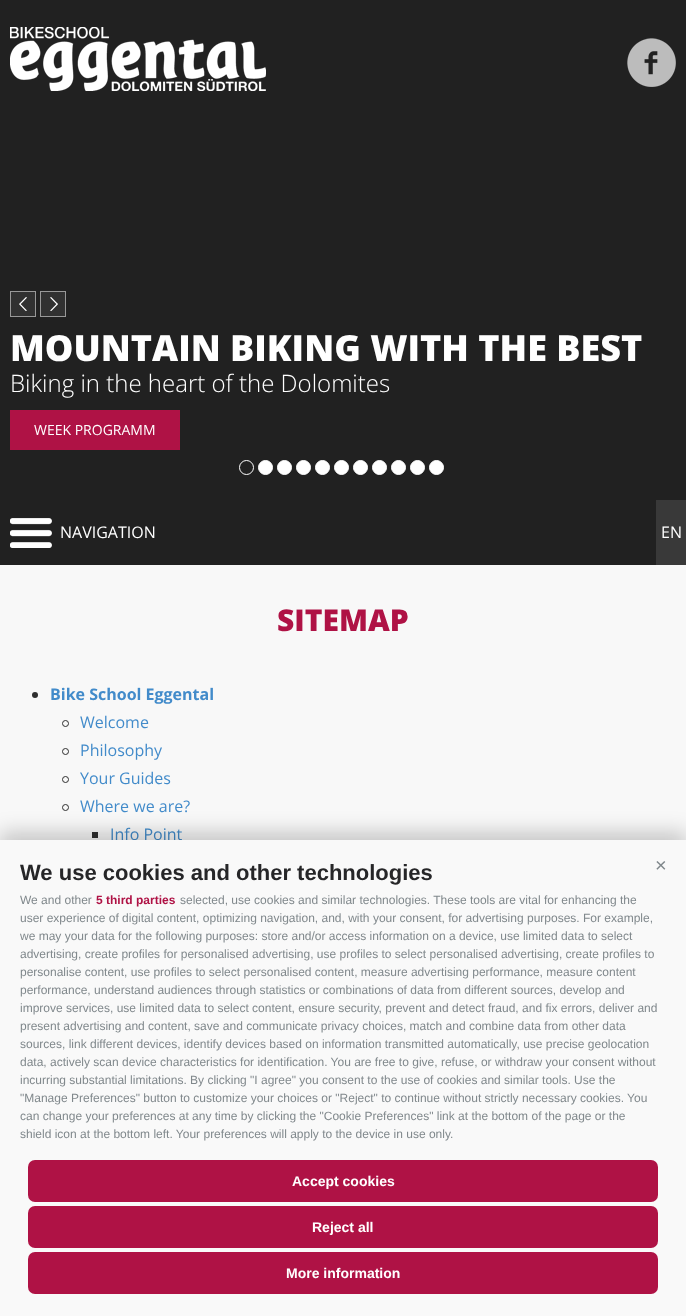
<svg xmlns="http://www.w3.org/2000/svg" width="686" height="1316">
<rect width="100%" height="100%" fill="#212121"/>
<image x="10" y="27" width="256" height="64" href="media/1.png"/>
<image x="627" y="38" width="49" height="49" href="media/2.png"/>
<rect x="11" y="292" width="24" height="24" fill="#313131"/>
<image x="19" y="297" width="8" height="14" href="media/3.png"/>
<rect x="10.5" y="291.5" width="25" height="25" fill="none" stroke="#989898"/>
<rect x="41" y="292" width="24" height="24" fill="#313131"/>
<image x="50" y="297" width="8" height="14" href="media/4.png"/>
<rect x="40.5" y="291.5" width="25" height="25" fill="none" stroke="#989898"/>
<text x="10" y="361" style="font-family:Open Sans;font-size:36px;font-weight:800;fill:#fff">MOUNTAIN BIKING WITH THE BEST</text>
<text x="10" y="392" style="font-family:Open Sans;font-size:24px;font-weight:300;fill:#fff">Biking in the heart of the Dolomites</text>
<rect x="10" y="410" width="170" height="40" fill="#af1245"/>
<text x="34" y="435" style="font-family:Open Sans;font-size:14px;fill:#fff">WEEK PROGRAMM</text>
<circle cx="246.5" cy="467.5" r="7" fill="none" stroke="#fff"/>
<circle cx="265.5" cy="467.5" r="7" fill="#fff" stroke="#fff"/>
<circle cx="284.5" cy="467.5" r="7" fill="#fff" stroke="#fff"/>
<circle cx="303.5" cy="467.5" r="7" fill="#fff" stroke="#fff"/>
<circle cx="322.5" cy="467.5" r="7" fill="#fff" stroke="#fff"/>
<circle cx="341.5" cy="467.5" r="7" fill="#fff" stroke="#fff"/>
<circle cx="360.5" cy="467.5" r="7" fill="#fff" stroke="#fff"/>
<circle cx="379.5" cy="467.5" r="7" fill="#fff" stroke="#fff"/>
<circle cx="398.5" cy="467.5" r="7" fill="#fff" stroke="#fff"/>
<circle cx="417.5" cy="467.5" r="7" fill="#fff" stroke="#fff"/>
<circle cx="436.5" cy="467.5" r="7" fill="#fff" stroke="#fff"/>
<image x="10" y="518" width="42" height="30" href="media/5.png"/>
<text x="60" y="538" style="font-family:Open Sans;font-size:16px;fill:#fff">NAVIGATION</text>
<rect x="656" y="500" width="30" height="65" fill="#393939"/>
<text x="661" y="538" style="font-family:Open Sans;font-size:16px;fill:#fff">EN</text>
<rect y="565" width="686" height="275" fill="#f8f8f8"/>
<text x="277" y="631" style="font-family:Open Sans;font-size:30px;font-weight:800;fill:#af1245">SITEMAP</text>
<circle cx="35" cy="695" r="3" fill="#2f2f2f"/>
<text x="50" y="700" style="font-family:Open Sans;font-size:16px;font-weight:bold;fill:#428bca">Bike School Eggental</text>
<circle cx="65.5" cy="723.5" r="3" fill="none" stroke="#2f2f2f"/>
<text x="80" y="728" style="font-family:Open Sans;font-size:16px;fill:#428bca">Welcome</text>
<circle cx="65.5" cy="751.5" r="3" fill="none" stroke="#2f2f2f"/>
<text x="80" y="756" style="font-family:Open Sans;font-size:16px;fill:#428bca">Philosophy</text>
<circle cx="65.5" cy="779.5" r="3" fill="none" stroke="#2f2f2f"/>
<text x="80" y="784" style="font-family:Open Sans;font-size:16px;fill:#428bca">Your Guides</text>
<circle cx="65.5" cy="807.5" r="3" fill="none" stroke="#2f2f2f"/>
<text x="80" y="812" style="font-family:Open Sans;font-size:16px;fill:#428bca">Where we are?</text>
<rect x="92" y="832" width="6" height="6" fill="#2f2f2f"/>
<text x="110" y="840" style="font-family:Open Sans;font-size:16px;fill:#428bca">Info Point</text>
<rect y="832" width="686" height="476" fill="#00000033" filter="blur(10px)"/>
<rect y="840" width="686" height="476" fill="#f9f9f9"/>
<text x="20" y="880" style="font-family:Liberation Sans;font-size:22px;font-weight:bold;fill:#262628">We use cookies and other technologies</text>
<text x="655" y="872" style="font-family:Liberation Sans;font-size:20px;fill:#80888c">×</text>
<text x="20" y="904" style="font-family:Liberation Sans;font-size:12px;fill:#80888c">We and other</text>
<text x="96" y="904" style="font-family:Liberation Sans;font-size:12px;font-weight:bold;fill:#af1245">5 third parties</text>
<text x="180" y="904" style="font-family:Liberation Sans;font-size:12px;fill:#80888c">selected, use cookies and similar technologies. These tools are vital for enhancing the</text>
<text x="20" y="922" style="font-family:Liberation Sans;font-size:12px;fill:#80888c">user experience of digital content, optimizing navigation, and, with your consent, for advertising purposes. For example,</text>
<text x="20" y="940" style="font-family:Liberation Sans;font-size:12px;fill:#80888c">we may your data for the following purposes: store and/or access information on a device, use limited data to select</text>
<text x="20" y="958" style="font-family:Liberation Sans;font-size:12px;fill:#80888c">advertising, create profiles for personalised advertising, use profiles to select personalised advertising, create profiles to</text>
<text x="20" y="976" style="font-family:Liberation Sans;font-size:12px;fill:#80888c">personalise content, use profiles to select personalised content, measure advertising performance, measure content</text>
<text x="20" y="994" style="font-family:Liberation Sans;font-size:12px;fill:#80888c">performance, understand audiences through statistics or combinations of data from different sources, develop and</text>
<text x="20" y="1012" style="font-family:Liberation Sans;font-size:12px;fill:#80888c">improve services, use limited data to select content, ensure security, prevent and detect fraud, and fix errors, deliver and</text>
<text x="20" y="1030" style="font-family:Liberation Sans;font-size:12px;fill:#80888c">present advertising and content, save and communicate privacy choices, match and combine data from other data</text>
<text x="20" y="1048" style="font-family:Liberation Sans;font-size:12px;fill:#80888c">sources, link different devices, identify devices based on information transmitted automatically, use precise geolocation</text>
<text x="20" y="1066" style="font-family:Liberation Sans;font-size:12px;fill:#80888c">data, actively scan device characteristics for identification. You are free to give, refuse, or withdraw your consent without</text>
<text x="20" y="1084" style="font-family:Liberation Sans;font-size:12px;fill:#80888c">incurring substantial limitations. By clicking "I agree" you consent to the use of cookies and similar tools. Use the</text>
<text x="20" y="1102" style="font-family:Liberation Sans;font-size:12px;fill:#80888c">"Manage Preferences" button to customize your choices or "Reject" to continue without strictly necessary cookies. You</text>
<text x="20" y="1120" style="font-family:Liberation Sans;font-size:12px;fill:#80888c">can change your preferences at any time by clicking the "Cookie Preferences" link at the bottom of the page or the</text>
<text x="20" y="1138" style="font-family:Liberation Sans;font-size:12px;fill:#80888c">shield icon at the bottom left. Your preferences will apply to the device in use only.</text>
<rect x="28" y="1160" width="630" height="42" rx="7" fill="#af1245"/>
<text x="292" y="1186" style="font-family:Liberation Sans;font-size:14px;font-weight:bold;fill:#fff">Accept cookies</text>
<rect x="28" y="1206" width="630" height="42" rx="7" fill="#af1245"/>
<text x="312" y="1232" style="font-family:Liberation Sans;font-size:14px;font-weight:bold;fill:#fff">Reject all</text>
<rect x="28" y="1252" width="630" height="42" rx="7" fill="#af1245"/>
<text x="286" y="1278" style="font-family:Liberation Sans;font-size:14px;font-weight:bold;fill:#fff">More information</text>
</svg>
